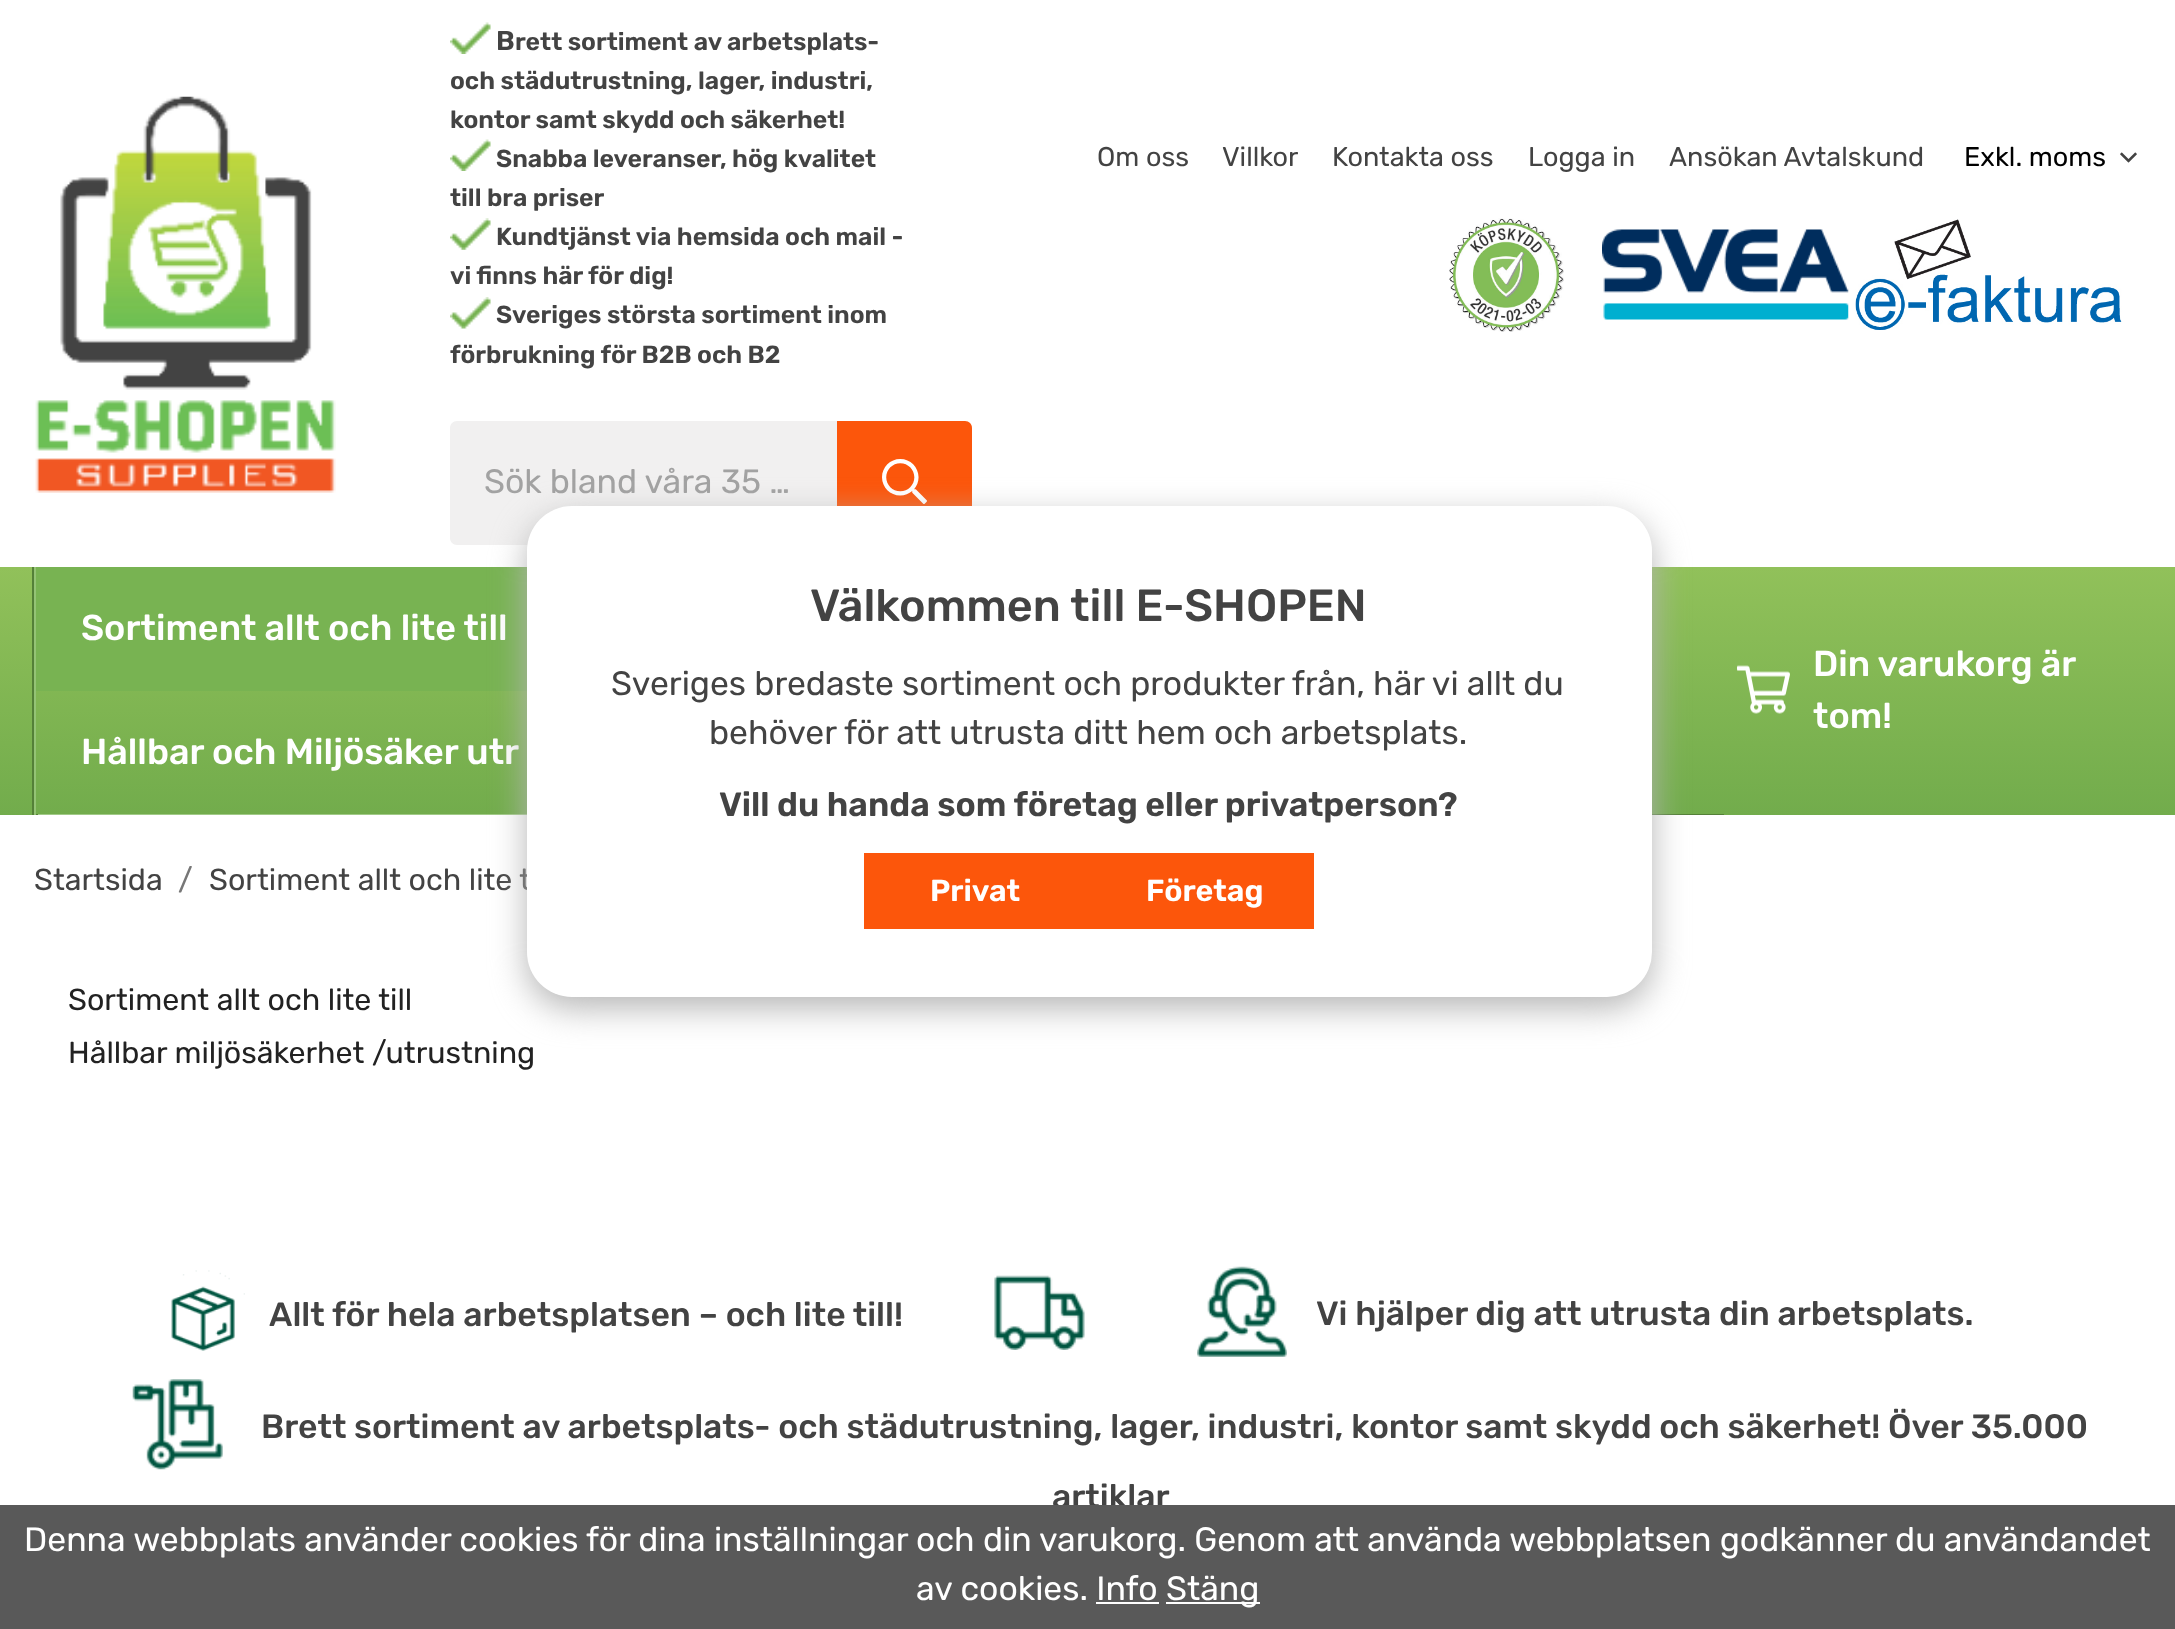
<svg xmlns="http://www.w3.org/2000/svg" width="2175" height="1629">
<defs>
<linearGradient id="g1" gradientUnits="userSpaceOnUse" x1="1088" y1="567" x2="1088" y2="815"><stop offset="0" stop-color="#91c15a"/><stop offset="1" stop-color="#72ac4c"/></linearGradient>
</defs>
<rect width="100%" height="100%" fill="#fff"/>
<image x="35" y="96" width="301" height="397" href="media/1.png"/>
<image x="450" y="22" width="41" height="32" href="media/2.png"/>
<text x="496" y="50" style="font-family:Rubik;font-size:27px;font-weight:600;fill:#434343">B</text>
<text x="515" y="50" style="font-family:Rubik;font-size:24.75px;font-weight:600;fill:#434343">rett sortiment av arbetsplats-</text>
<text x="450" y="89" style="font-family:Rubik;font-size:24.75px;font-weight:600;fill:#434343">och städutrustning, lager, industri,</text>
<text x="450" y="128" style="font-family:Rubik;font-size:24.75px;font-weight:600;fill:#434343">kontor samt skydd och säkerhet!</text>
<image x="450" y="139" width="41" height="32" href="media/2.png"/>
<text x="496" y="167" style="font-family:Rubik;font-size:24.75px;font-weight:600;fill:#434343">Snabba leveranser, hög kvalitet</text>
<text x="450" y="206" style="font-family:Rubik;font-size:24.75px;font-weight:600;fill:#434343">till bra priser</text>
<image x="450" y="218" width="41" height="32" href="media/3.png"/>
<text x="496" y="245" style="font-family:Rubik;font-size:24.75px;font-weight:600;fill:#434343">Kundtjänst via hemsida och mail -</text>
<text x="450" y="284" style="font-family:Rubik;font-size:24.75px;font-weight:600;fill:#434343">vi finns här för dig!</text>
<image x="450" y="297" width="41" height="32" href="media/4.png"/>
<text x="496" y="323" style="font-family:Rubik;font-size:24.75px;font-weight:600;fill:#434343">Sveriges största sortiment inom</text>
<text x="450" y="363" style="font-family:Rubik;font-size:24.75px;font-weight:600;fill:#434343">förbrukning för B2B och B2</text>
<path d="M457 421h380v124h-380c-4 0-7-3-7-7v-110c0-4 3-7 7-7z" fill="#f1f0f0"/>
<text x="484" y="493" style="font-family:Rubik;font-size:33.75px;fill:#a2a2a2">Sök bland våra 35 …</text>
<path d="M837 421h128c4 0 7 3 7 7v110c0 4-3 7-7 7h-128z" fill="#fc560b"/>
<image x="882" y="459" width="45" height="45" href="media/5.png"/>
<text x="1097" y="166" style="font-family:Rubik;font-size:27px;fill:#434343">Om oss</text>
<text x="1222" y="166" style="font-family:Rubik;font-size:27px;fill:#434343">Villkor</text>
<text x="1332" y="166" style="font-family:Rubik;font-size:27px;fill:#434343">Kontakta oss</text>
<text x="1528" y="166" style="font-family:Rubik;font-size:27px;fill:#434343">Logga in</text>
<text x="1669" y="166" style="font-family:Rubik;font-size:27px;fill:#434343">Ansökan Avtalskund</text>
<text x="1964" y="166" style="font-family:Rubik;font-size:27px;fill:#000">Exkl. moms</text>
<image x="2120" y="152" width="17" height="11" href="media/6.png"/>
<image x="1449" y="218" width="115" height="114" href="media/7.png"/>
<image x="1602" y="229" width="247" height="91" href="media/8.png"/>
<image x="1855" y="219" width="267" height="111" href="media/9.png"/>
<rect y="567" width="2175" height="248" fill="url(#g1)"/>
<path d="M32 567v248h1692v-1h-1690v-247z" fill="#548038"/>
<rect x="34" y="567" width="2" height="248" fill="#94c375"/>
<rect x="36" y="567" width="491" height="124" fill="#78b352"/>
<text x="81" y="640" style="font-family:Rubik;font-size:36px;font-weight:500;fill:#fff">Sortiment allt och lite till</text>
<path d="M38 814v1h664v-124h-2v123z" fill="#a1ca87"/>
<text x="81" y="764" style="font-family:Rubik;font-size:36px;font-weight:500;fill:#fff">Hållbar och Miljösäker utr</text>
<image x="1737" y="665" width="53" height="49" href="media/10.png"/>
<text x="1813" y="676" style="font-family:Rubik;font-size:36px;font-weight:500;fill:#fff">Din varukorg är</text>
<text x="1813" y="728" style="font-family:Rubik;font-size:36px;font-weight:500;fill:#fff">tom!</text>
<text x="34" y="890" style="font-family:Rubik;font-size:30.4px;fill:#434343">Startsida</text>
<text x="178" y="890" style="font-family:Rubik;font-size:30.4px;fill:#777">/</text>
<text x="209" y="890" style="font-family:Rubik;font-size:30.4px;fill:#434343">Sortiment allt och lite t</text>
<text x="68" y="1010" style="font-family:Rubik;font-size:30.4px;fill:#222">Sortiment allt och lite till</text>
<text x="68" y="1063" style="font-family:Rubik;font-size:30.4px;fill:#222">Hållbar miljösäkerhet /utrustning</text>
<image x="171" y="1270" width="74" height="81" href="media/11.png"/>
<text x="269" y="1326" style="font-family:Rubik;font-size:33.75px;font-weight:500;fill:#434343">Allt för hela arbetsplatsen – och lite till!</text>
<image x="994" y="1275" width="91" height="75" href="media/12.png"/>
<image x="1197" y="1266" width="90" height="91" href="media/13.png"/>
<text x="1316" y="1325" style="font-family:Rubik;font-size:33.75px;font-weight:500;fill:#434343">Vi hjälper dig att utrusta din arbetsplats.</text>
<image x="132" y="1379" width="91" height="91" href="media/14.png"/>
<text x="261" y="1438" style="font-family:Rubik;font-size:33.75px;font-weight:500;fill:#434343">Brett sortiment av arbetsplats- och städutrustning, lager, industri, kontor samt skydd och säkerhet! Över 35.000</text>
<text x="1052" y="1508" style="font-family:Rubik;font-size:33.75px;font-weight:500;fill:#434343">artiklar</text>
<rect x="527" y="518" width="1125" height="490" rx="45" fill="#b5b5b5" filter="blur(17px)"/>
<rect x="527" y="506" width="1125" height="491" rx="45" fill="#fff"/>
<text x="810" y="621" style="font-family:Rubik;font-size:45px;font-weight:500;fill:#434343">Välkommen till E-SHOPEN</text>
<text x="611" y="695" style="font-family:Rubik;font-size:33.75px;fill:#434343">Sveriges bredaste sortiment och produkter från, här vi allt du</text>
<text x="709" y="744" style="font-family:Rubik;font-size:33.75px;fill:#434343">behöver för att utrusta ditt hem och arbetsplats.</text>
<text x="719" y="816" style="font-family:Rubik;font-size:33.75px;font-weight:600;fill:#434343">Vill du handa som företag eller privatperson?</text>
<rect x="864" y="853" width="450" height="76" fill="#fc560b"/>
<text x="930" y="901" style="font-family:Rubik;font-size:30.4px;font-weight:600;fill:#fff">Privat</text>
<text x="1146" y="901" style="font-family:Rubik;font-size:30.4px;font-weight:600;fill:#fff">Företag</text>
<rect y="1505" width="2175" height="124" fill="#595959"/>
<text x="24" y="1551" style="font-family:Rubik;font-size:33.75px;fill:#fff">Denna webbplats använder cookies för dina inställningar och din varukorg. Genom att använda webbplatsen godkänner du användandet</text>
<text x="916" y="1600" style="font-family:Rubik;font-size:33.75px;fill:#fff">av cookies. Info</text>
<rect x="1166" y="1602" width="94" height="2" fill="#fff"/>
<text x="1166" y="1600" style="font-family:Rubik;font-size:33.75px;fill:#fff">Stäng</text>
<rect x="1096" y="1602" width="63" height="2" fill="#fff"/>
</svg>
